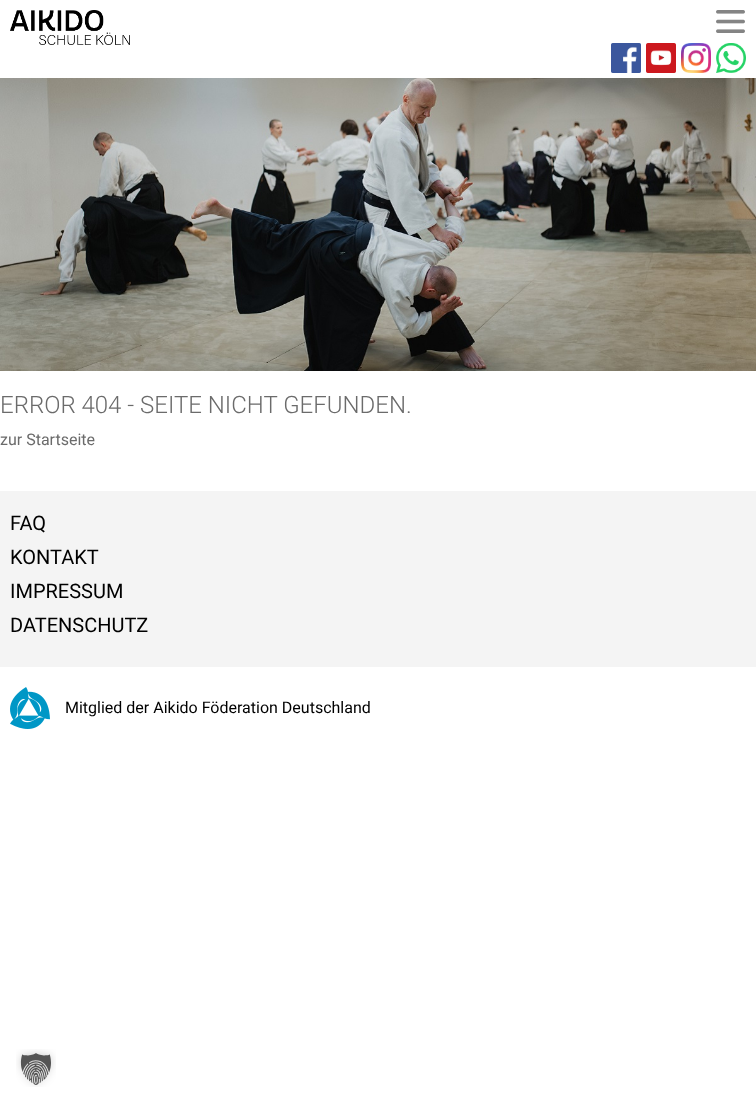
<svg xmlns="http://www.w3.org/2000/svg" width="756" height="1105">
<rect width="100%" height="100%" fill="#fff"/>
<image x="10" y="10" width="120" height="35" href="media/1.png"/>
<image x="716" y="10" width="29" height="23" href="media/2.png"/>
<image x="611" y="43" width="30" height="30" href="media/3.png"/>
<image x="646" y="43" width="30" height="30" href="media/4.png"/>
<image x="681" y="43" width="30" height="30" href="media/5.png"/>
<image x="716" y="43" width="30" height="30" href="media/6.png"/>
<image x="0" y="78" width="756" height="293" href="media/7.png"/>
<text x="0" y="413" style="font-family:Roboto;font-size:24px;font-weight:300;fill:#6b6b6b">ERROR 404 - SEITE NICHT GEFUNDEN.</text>
<text x="0" y="445" style="font-family:Roboto;font-size:16px;fill:#6b6b6b">zur Startseite</text>
<rect y="491" width="756" height="176" fill="#f4f4f4"/>
<text x="10" y="530" style="font-family:Roboto;font-size:20px;fill:#000">FAQ</text>
<text x="10" y="564" style="font-family:Roboto;font-size:20px;fill:#000">KONTAKT</text>
<text x="10" y="598" style="font-family:Roboto;font-size:20px;fill:#000">IMPRESSUM</text>
<text x="10" y="632" style="font-family:Roboto;font-size:20px;fill:#000">DATENSCHUTZ</text>
<image x="10" y="687" width="40" height="42" href="media/8.png"/>
<text x="65" y="713" style="font-family:Roboto;font-size:16px;fill:#000">Mitglied der Aikido Föderation Deutschland</text>
<image x="16" y="1049" width="40" height="38" href="media/9.png"/>
</svg>
